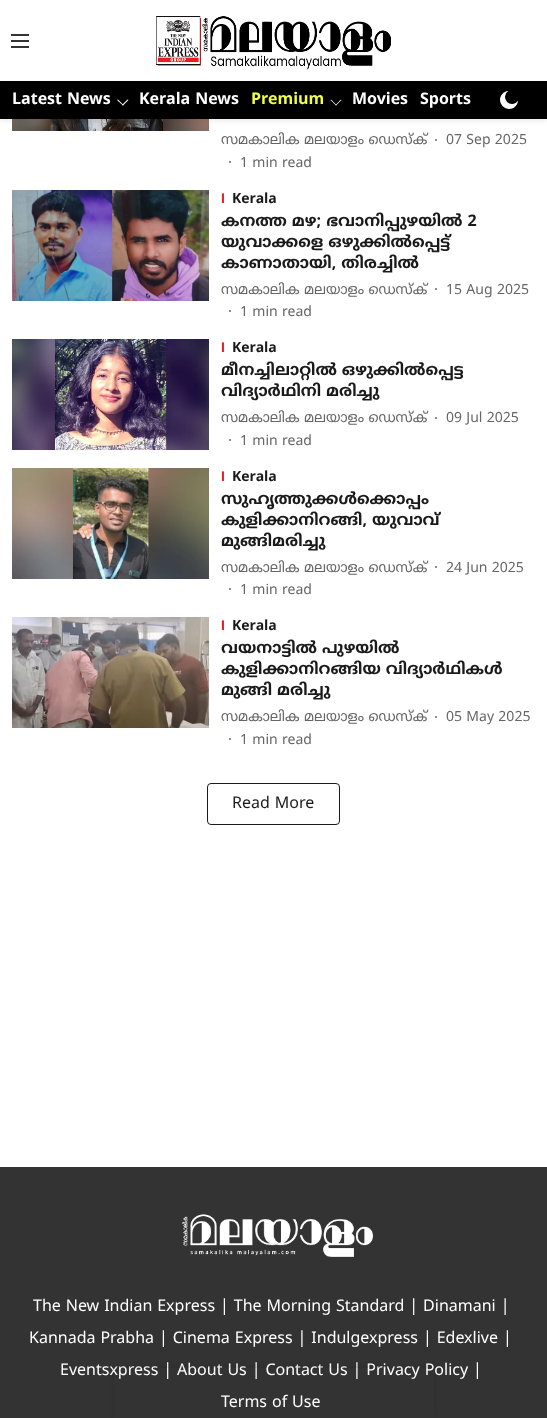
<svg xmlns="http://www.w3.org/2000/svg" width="547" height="1418">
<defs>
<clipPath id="clip1"><rect x="221" y="190" width="3" height="18"/></clipPath>
<clipPath id="clip2"><rect x="221" y="339" width="3" height="18"/></clipPath>
<clipPath id="clip3"><rect x="221" y="468" width="3" height="18"/></clipPath>
<clipPath id="clip4"><rect x="221" y="617" width="3" height="18"/></clipPath>
<clipPath id="clip5"><path d="M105 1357h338v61h-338zm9 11h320v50h-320z" clip-rule="evenodd"/></clipPath>
</defs>
<rect width="100%" height="100%" fill="#fff"/>
<image x="12" y="119" width="197" height="12" href="media/4.png"/>
<rect y="1" width="547" height="119" fill="#0000001a" filter="blur(3px)"/>
<rect width="547" height="81" fill="#fff"/>
<image x="11" y="34" width="18" height="14" href="media/1.png"/>
<image x="156" y="16" width="235" height="54" href="media/2.png"/>
<rect y="81" width="547" height="38" fill="#000"/>
<text x="12" y="104" style="font-family:Noto Sans Malayalam;font-size:16px;font-weight:bold;fill:#fff">Latest News</text>
<path d="M127.5 99.5l1 .5l-5.5 5.5l-1-.5z" fill="#fff"/>
<path d="M118 99.5l5.5 5.5l-.5 .5l-6-5.5z" fill="#fff"/>
<text x="139" y="104" style="font-family:Noto Sans Malayalam;font-size:16px;font-weight:bold;fill:#fff">Kerala News</text>
<text x="251" y="104" style="font-family:Noto Sans Malayalam;font-size:16px;font-weight:bold;fill:#f1fd4d">Premium</text>
<path d="M341 99.5l.5 .5l-5.5 5.5l-.5-.5z" fill="#fff"/>
<path d="M331 99.5l5.5 5.5l-.5 .5l-5.5-5.5z" fill="#fff"/>
<text x="352" y="104" style="font-family:Noto Sans Malayalam;font-size:16px;font-weight:bold;fill:#fff">Movies</text>
<text x="420" y="104" style="font-family:Noto Sans Malayalam;font-size:16px;font-weight:bold;fill:#fff">Sports</text>
<image x="500" y="91" width="18" height="18" href="media/3.png"/>
<text x="221" y="144" style="font-family:Noto Sans Malayalam;font-size:14px;fill:#666">സമകാലിക മലയാളം ഡെസ്ക്</text>
<circle cx="436" cy="140" r="1" fill="#666"/>
<text x="446" y="144" style="font-family:Noto Sans Malayalam;font-size:14px;fill:#666">07 Sep 2025</text>
<circle cx="230" cy="162" r="1" fill="#666"/>
<text x="240" y="167" style="font-family:Noto Sans Malayalam;font-size:14px;fill:#666">1 min read</text>
<image x="12" y="190" width="197" height="111" href="media/5.png"/>
<g clip-path="url(#clip1)">
<text x="221" y="203" style="font-family:Liberation Sans;font-size:14px;font-weight:bold;fill:#ec1b24">I</text>
</g>
<text x="232" y="203" style="font-family:Noto Sans Malayalam;font-size:14px;font-weight:bold;fill:#1a1a1a">Kerala</text>
<text x="221" y="226" style="font-family:Noto Sans Malayalam;font-size:16px;font-weight:bold;fill:#1a1a1a">കനത്ത മഴ; ഭവാനിപ്പുഴയിൽ 2</text>
<text x="221" y="247" style="font-family:Noto Sans Malayalam;font-size:16px;font-weight:bold;fill:#1a1a1a">യുവാക്ക‌ളെ ഒഴുക്കിൽപ്പെട്ട്</text>
<text x="221" y="268" style="font-family:Noto Sans Malayalam;font-size:16px;font-weight:bold;fill:#1a1a1a">കാണാതായി, തിരച്ചിൽ</text>
<text x="221" y="294" style="font-family:Noto Sans Malayalam;font-size:14px;fill:#666">സമകാലിക മലയാളം ഡെസ്ക്</text>
<circle cx="436" cy="289" r="1" fill="#666"/>
<text x="446" y="294" style="font-family:Noto Sans Malayalam;font-size:14px;fill:#666">15 Aug 2025</text>
<circle cx="230" cy="311" r="1" fill="#666"/>
<text x="240" y="316" style="font-family:Noto Sans Malayalam;font-size:14px;fill:#666">1 min read</text>
<image x="12" y="339" width="197" height="111" href="media/6.png"/>
<g clip-path="url(#clip2)">
<text x="221" y="352" style="font-family:Liberation Sans;font-size:14px;font-weight:bold;fill:#ec1b24">I</text>
</g>
<text x="232" y="352" style="font-family:Noto Sans Malayalam;font-size:14px;font-weight:bold;fill:#1a1a1a">Kerala</text>
<text x="221" y="375" style="font-family:Noto Sans Malayalam;font-size:16px;font-weight:bold;fill:#1a1a1a">മീനച്ചിലാറ്റില്‍ ഒഴുക്കില്‍പ്പെട്ട</text>
<text x="221" y="396" style="font-family:Noto Sans Malayalam;font-size:16px;font-weight:bold;fill:#1a1a1a">വിദ്യാര്‍ഥിനി മരിച്ചു</text>
<text x="221" y="422" style="font-family:Noto Sans Malayalam;font-size:14px;fill:#666">സമകാലിക മലയാളം ഡെസ്ക്</text>
<circle cx="436" cy="418" r="1" fill="#666"/>
<text x="446" y="422" style="font-family:Noto Sans Malayalam;font-size:14px;fill:#666">09 Jul 2025</text>
<circle cx="230" cy="440" r="1" fill="#666"/>
<text x="240" y="445" style="font-family:Noto Sans Malayalam;font-size:14px;fill:#666">1 min read</text>
<image x="12" y="468" width="197" height="111" href="media/7.png"/>
<g clip-path="url(#clip3)">
<text x="221" y="481" style="font-family:Liberation Sans;font-size:14px;font-weight:bold;fill:#ec1b24">I</text>
</g>
<text x="232" y="481" style="font-family:Noto Sans Malayalam;font-size:14px;font-weight:bold;fill:#1a1a1a">Kerala</text>
<text x="221" y="504" style="font-family:Noto Sans Malayalam;font-size:16px;font-weight:bold;fill:#1a1a1a">സുഹൃത്തുക്കള്‍ക്കൊപ്പം</text>
<text x="221" y="525" style="font-family:Noto Sans Malayalam;font-size:16px;font-weight:bold;fill:#1a1a1a">കുളിക്കാനിറങ്ങി, യുവാവ്</text>
<text x="221" y="546" style="font-family:Noto Sans Malayalam;font-size:16px;font-weight:bold;fill:#1a1a1a">മുങ്ങിമരിച്ചു</text>
<text x="221" y="572" style="font-family:Noto Sans Malayalam;font-size:14px;fill:#666">സമകാലിക മലയാളം ഡെസ്ക്</text>
<circle cx="436" cy="567" r="1" fill="#666"/>
<text x="446" y="572" style="font-family:Noto Sans Malayalam;font-size:14px;fill:#666">24 Jun 2025</text>
<circle cx="230" cy="589" r="1" fill="#666"/>
<text x="240" y="594" style="font-family:Noto Sans Malayalam;font-size:14px;fill:#666">1 min read</text>
<image x="12" y="617" width="197" height="111" href="media/8.png"/>
<g clip-path="url(#clip4)">
<text x="221" y="630" style="font-family:Liberation Sans;font-size:14px;font-weight:bold;fill:#ec1b24">I</text>
</g>
<text x="232" y="630" style="font-family:Noto Sans Malayalam;font-size:14px;font-weight:bold;fill:#1a1a1a">Kerala</text>
<text x="221" y="653" style="font-family:Noto Sans Malayalam;font-size:16px;font-weight:bold;fill:#1a1a1a">വയനാട്ടില്‍ പുഴയില്‍</text>
<text x="221" y="674" style="font-family:Noto Sans Malayalam;font-size:16px;font-weight:bold;fill:#1a1a1a">കുളിക്കാനിറങ്ങിയ വിദ്യാര്‍ഥികള്‍</text>
<text x="221" y="695" style="font-family:Noto Sans Malayalam;font-size:16px;font-weight:bold;fill:#1a1a1a">മുങ്ങി മരിച്ചു</text>
<text x="221" y="721" style="font-family:Noto Sans Malayalam;font-size:14px;fill:#666">സമകാലിക മലയാളം ഡെസ്ക്</text>
<circle cx="436" cy="717" r="1" fill="#666"/>
<text x="446" y="721" style="font-family:Noto Sans Malayalam;font-size:14px;fill:#666">05 May 2025</text>
<circle cx="230" cy="739" r="1" fill="#666"/>
<text x="240" y="744" style="font-family:Noto Sans Malayalam;font-size:14px;fill:#666">1 min read</text>
<rect x="207.5" y="783.5" width="132" height="41" rx="3.5" fill="none" stroke="#1a1a1a"/>
<text x="232" y="808" style="font-family:Noto Sans Malayalam;font-size:16px;fill:#1a1a1a">Read More</text>
<rect y="1167" width="547" height="251" fill="#333"/>
<image x="182" y="1214" width="191" height="43" href="media/9.png"/>
<text x="33" y="1311" style="font-family:Noto Sans Malayalam;font-size:16px;fill:#fff">The New Indian Express | The Morning Standard | Dinamani |</text>
<text x="29" y="1343" style="font-family:Noto Sans Malayalam;font-size:16px;fill:#fff">Kannada Prabha | Cinema Express | Indulgexpress | Edexlive |</text>
<text x="60" y="1375" style="font-family:Noto Sans Malayalam;font-size:16px;fill:#fff">Eventsxpress | About Us | Contact Us | Privacy Policy |</text>
<text x="221" y="1407" style="font-family:Noto Sans Malayalam;font-size:16px;fill:#fff">Terms of Use</text>
<g clip-path="url(#clip5)">
<rect x="114" y="1366" width="320" height="50" fill="#0000001a" filter="blur(2.5px)"/>
</g>
</svg>
